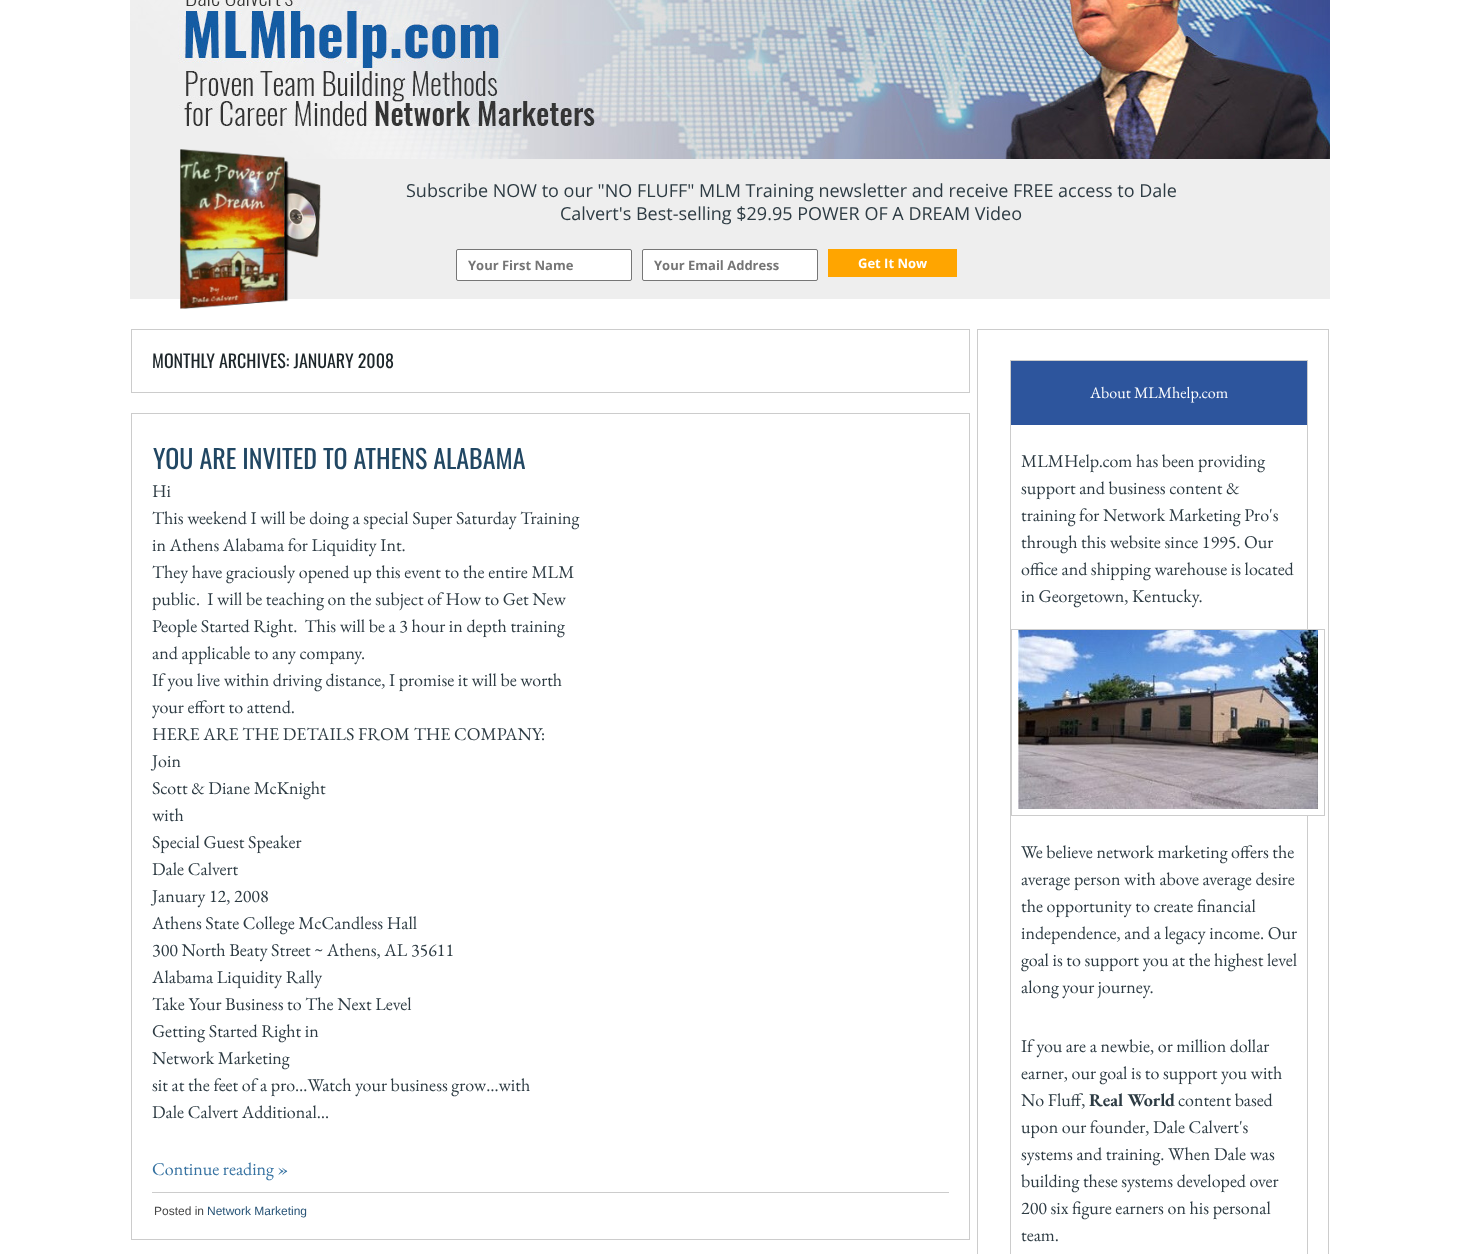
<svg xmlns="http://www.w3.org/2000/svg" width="1460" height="1254">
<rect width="100%" height="100%" fill="#fff"/>
<image x="130" y="0" width="1200" height="159" href="media/1.png"/>
<rect x="130" y="159" width="1200" height="140" fill="#eee"/>
<image x="180" y="149" width="141" height="160" href="media/2.png"/>
<text x="406" y="197" style="font-family:Open Sans;font-size:18px;fill:#2d3b43">Subscribe NOW to our "NO FLUFF" MLM Training newsletter and receive FREE access to Dale</text>
<text x="560" y="220" style="font-family:Open Sans;font-size:18px;fill:#2d3b43">Calvert's Best-selling $29.95 POWER OF A DREAM Video</text>
<rect x="456.5" y="249.5" width="175" height="31" rx="1.5" fill="#fff" stroke="#767676"/>
<text x="468" y="270" style="font-family:Open Sans;font-size:13px;font-weight:bold;fill:#757575">Your First Name</text>
<rect x="642.5" y="249.5" width="175" height="31" rx="1.5" fill="#fff" stroke="#767676"/>
<text x="654" y="270" style="font-family:Open Sans;font-size:13px;font-weight:bold;fill:#757575">Your Email Address</text>
<rect x="828" y="249" width="129" height="28" fill="#ffa500"/>
<text x="858" y="268" style="font-family:Open Sans;font-size:13px;font-weight:bold;fill:#fff">Get It Now</text>
<rect x="131.5" y="329.5" width="838" height="63" fill="none" stroke="#ccc"/>
<text x="152" y="368" style="font-family:Oswald;font-size:18px;fill:#1d262a">MONTHLY ARCHIVES: JANUARY 2008</text>
<rect x="131.5" y="413.5" width="838" height="826" fill="none" stroke="#ccc"/>
<text x="153" y="469" style="font-family:Oswald;font-size:26px;fill:#214763">YOU ARE INVITED TO ATHENS ALABAMA</text>
<text x="152" y="497" style="font-family:EB Garamond;font-size:18px;fill:#2d3b43">Hi</text>
<text x="152" y="524" style="font-family:EB Garamond;font-size:18px;fill:#2d3b43">This weekend I will be doing a special Super Saturday Training</text>
<text x="152" y="551" style="font-family:EB Garamond;font-size:18px;fill:#2d3b43">in Athens Alabama for Liquidity Int.</text>
<text x="152" y="578" style="font-family:EB Garamond;font-size:18px;fill:#2d3b43">They have graciously opened up this event to the entire MLM</text>
<text x="152" y="605" style="font-family:EB Garamond;font-size:18px;fill:#2d3b43" xml:space="preserve">public.  I will be teaching on the subject of How to Get New</text>
<text x="152" y="632" style="font-family:EB Garamond;font-size:18px;fill:#2d3b43" xml:space="preserve">People Started Right.  This will be a 3 hour in depth training</text>
<text x="152" y="659" style="font-family:EB Garamond;font-size:18px;fill:#2d3b43">and applicable to any company.</text>
<text x="152" y="686" style="font-family:EB Garamond;font-size:18px;fill:#2d3b43">If you live within driving distance, I promise it will be worth</text>
<text x="152" y="713" style="font-family:EB Garamond;font-size:18px;fill:#2d3b43">your effort to attend.</text>
<text x="152" y="740" style="font-family:EB Garamond;font-size:18px;fill:#2d3b43">HERE ARE THE DETAILS FROM THE COMPANY:</text>
<text x="152" y="767" style="font-family:EB Garamond;font-size:18px;fill:#2d3b43">Join</text>
<text x="152" y="794" style="font-family:EB Garamond;font-size:18px;fill:#2d3b43">Scott &amp; Diane McKnight</text>
<text x="152" y="821" style="font-family:EB Garamond;font-size:18px;fill:#2d3b43">with</text>
<text x="152" y="848" style="font-family:EB Garamond;font-size:18px;fill:#2d3b43">Special Guest Speaker</text>
<text x="152" y="875" style="font-family:EB Garamond;font-size:18px;fill:#2d3b43">Dale Calvert</text>
<text x="152" y="902" style="font-family:EB Garamond;font-size:18px;fill:#2d3b43">January 12, 2008</text>
<text x="152" y="929" style="font-family:EB Garamond;font-size:18px;fill:#2d3b43">Athens State College McCandless Hall</text>
<text x="152" y="956" style="font-family:EB Garamond;font-size:18px;fill:#2d3b43">300 North Beaty Street ~ Athens, AL 35611</text>
<text x="152" y="983" style="font-family:EB Garamond;font-size:18px;fill:#2d3b43">Alabama Liquidity Rally</text>
<text x="152" y="1010" style="font-family:EB Garamond;font-size:18px;fill:#2d3b43">Take Your Business to The Next Level</text>
<text x="152" y="1037" style="font-family:EB Garamond;font-size:18px;fill:#2d3b43">Getting Started Right in</text>
<text x="152" y="1064" style="font-family:EB Garamond;font-size:18px;fill:#2d3b43">Network Marketing</text>
<text x="152" y="1091" style="font-family:EB Garamond;font-size:18px;fill:#2d3b43">sit at the feet of a pro…Watch your business grow…with</text>
<text x="152" y="1118" style="font-family:EB Garamond;font-size:18px;fill:#2d3b43">Dale Calvert Additional…</text>
<text x="152" y="1175" style="font-family:EB Garamond;font-size:18px;fill:#3672a1">Continue reading »</text>
<rect x="152" y="1192" width="797" height="1" fill="#ccc"/>
<text x="154" y="1215" style="font-family:Liberation Sans;font-size:12px;fill:#464646">Posted in</text>
<text x="207" y="1215" style="font-family:Liberation Sans;font-size:12px;fill:#285477">Network Marketing</text>
<rect x="977.5" y="329.5" width="351" height="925" fill="none" stroke="#ccc"/>
<rect x="1010.5" y="360.5" width="297" height="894" fill="none" stroke="#ccc"/>
<rect x="1011" y="361" width="296" height="64" fill="#2d559d"/>
<text x="1090" y="398" style="font-family:EB Garamond;font-size:16px;fill:#fff">About MLMhelp.com</text>
<text x="1021" y="467" style="font-family:EB Garamond;font-size:18px;fill:#2d3b43">MLMHelp.com has been providing</text>
<text x="1021" y="494" style="font-family:EB Garamond;font-size:18px;fill:#2d3b43">support and business content &amp;</text>
<text x="1021" y="521" style="font-family:EB Garamond;font-size:18px;fill:#2d3b43">training for Network Marketing Pro's</text>
<text x="1021" y="548" style="font-family:EB Garamond;font-size:18px;fill:#2d3b43">through this website since 1995. Our</text>
<text x="1021" y="575" style="font-family:EB Garamond;font-size:18px;fill:#2d3b43">office and shipping warehouse is located</text>
<text x="1021" y="602" style="font-family:EB Garamond;font-size:18px;fill:#2d3b43">in Georgetown, Kentucky.</text>
<rect x="1307" y="630" width="1" height="185" fill="#fff"/>
<rect x="1011.5" y="629.5" width="313" height="186" fill="none" stroke="#ccc"/>
<image x="1018" y="630" width="300" height="179" href="media/3.png"/>
<text x="1021" y="858" style="font-family:EB Garamond;font-size:18px;fill:#2d3b43">We believe network marketing offers the</text>
<text x="1021" y="885" style="font-family:EB Garamond;font-size:18px;fill:#2d3b43">average person with above average desire</text>
<text x="1021" y="912" style="font-family:EB Garamond;font-size:18px;fill:#2d3b43">the opportunity to create financial</text>
<text x="1021" y="939" style="font-family:EB Garamond;font-size:18px;fill:#2d3b43">independence, and a legacy income. Our</text>
<text x="1021" y="966" style="font-family:EB Garamond;font-size:18px;fill:#2d3b43">goal is to support you at the highest level</text>
<text x="1021" y="993" style="font-family:EB Garamond;font-size:18px;fill:#2d3b43">along your journey.</text>
<text x="1021" y="1052" style="font-family:EB Garamond;font-size:18px;fill:#2d3b43">If you are a newbie, or million dollar</text>
<text x="1021" y="1079" style="font-family:EB Garamond;font-size:18px;fill:#2d3b43">earner, our goal is to support you with</text>
<text x="1021" y="1106" style="font-family:EB Garamond;font-size:18px;fill:#2d3b43">No Fluff,</text>
<text x="1089" y="1106" style="font-family:EB Garamond;font-size:18px;font-weight:bold;fill:#2d3b43">Real World</text>
<text x="1178" y="1106" style="font-family:EB Garamond;font-size:18px;fill:#2d3b43">content based</text>
<text x="1021" y="1133" style="font-family:EB Garamond;font-size:18px;fill:#2d3b43">upon our founder, Dale Calvert's</text>
<text x="1021" y="1160" style="font-family:EB Garamond;font-size:18px;fill:#2d3b43">systems and training. When Dale was</text>
<text x="1021" y="1187" style="font-family:EB Garamond;font-size:18px;fill:#2d3b43">building these systems developed over</text>
<text x="1021" y="1214" style="font-family:EB Garamond;font-size:18px;fill:#2d3b43">200 six figure earners on his personal</text>
<text x="1021" y="1241" style="font-family:EB Garamond;font-size:18px;fill:#2d3b43">team.</text>
</svg>
